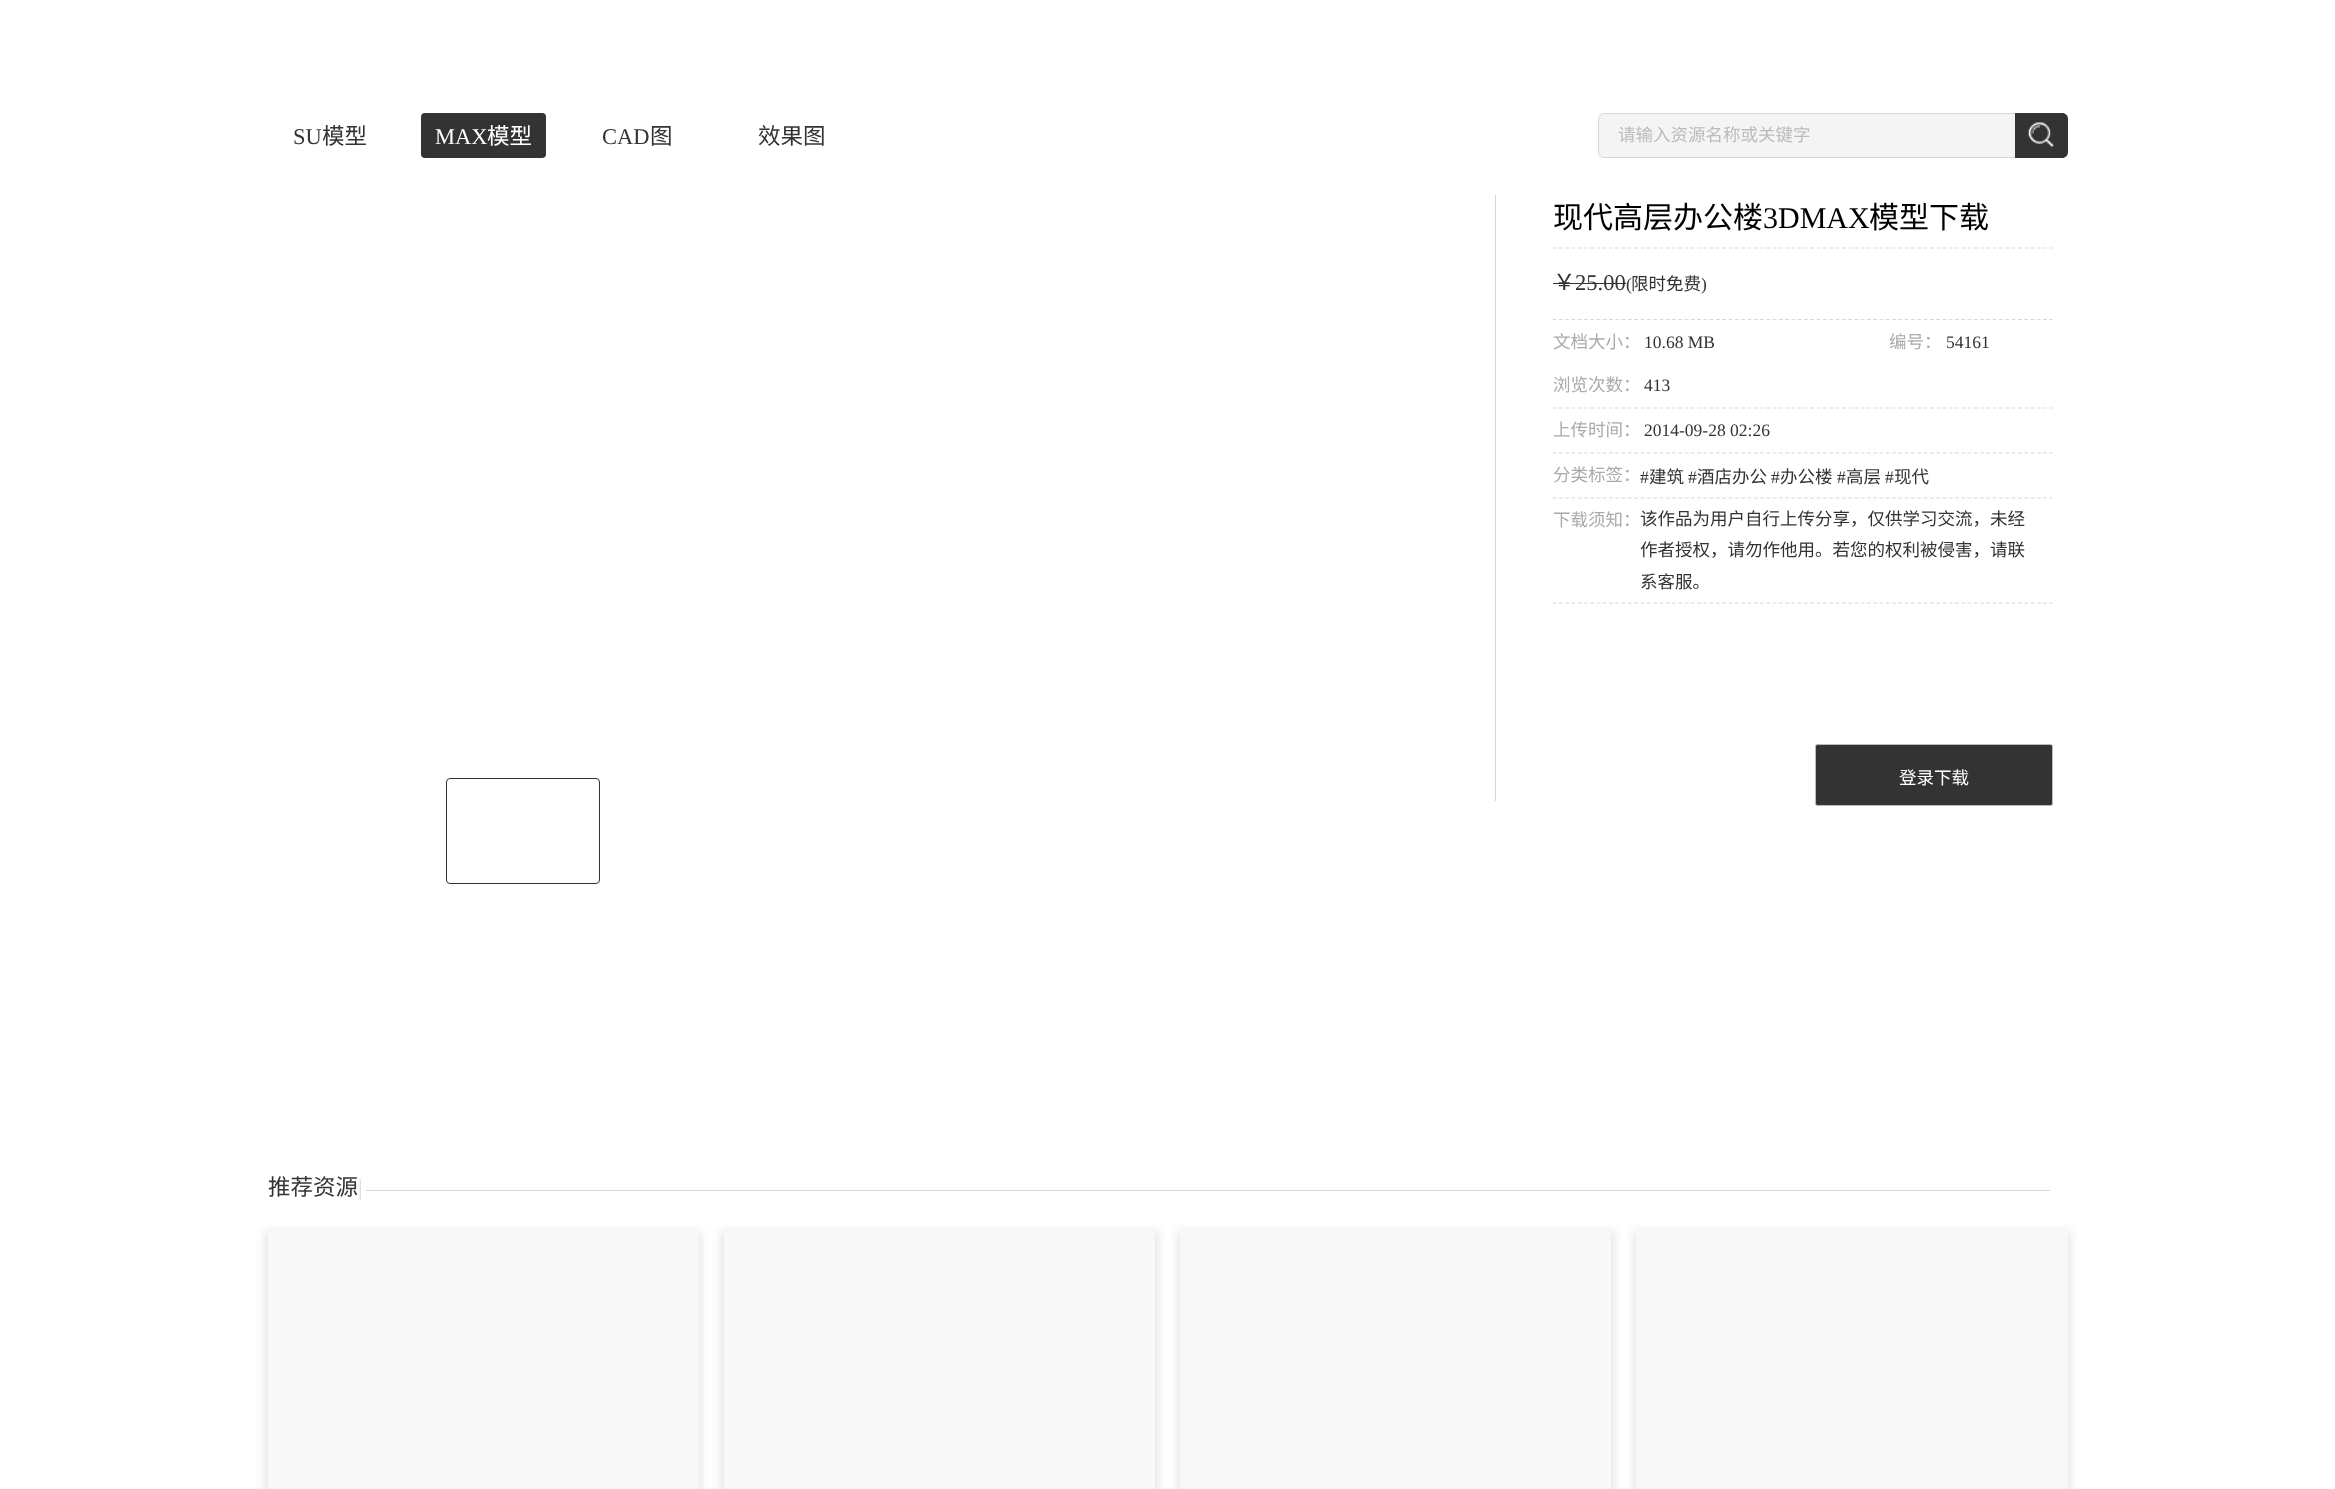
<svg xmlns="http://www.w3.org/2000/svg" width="2335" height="1489">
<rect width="100%" height="100%" fill="#fff"/>
<text x="293" y="144" style="font-family:Liberation Serif;font-size:22.5px;fill:#333">SU</text>
<text x="322" y="144" style="font-family:Noto Sans CJK SC;font-size:22.5px;fill:#333">模型</text>
<rect x="421" y="113" width="125" height="45" rx="4" fill="#333"/>
<text x="435" y="144" style="font-family:Liberation Serif;font-size:22.5px;fill:#fff">MAX</text>
<text x="487" y="144" style="font-family:Noto Sans CJK SC;font-size:22.5px;fill:#fff">模型</text>
<text x="602" y="144" style="font-family:Liberation Serif;font-size:22.5px;fill:#333">CAD</text>
<text x="650" y="144" style="font-family:Noto Sans CJK SC;font-size:22.5px;fill:#333">图</text>
<text x="758" y="144" style="font-family:Noto Sans CJK SC;font-size:22.5px;fill:#333">效果图</text>
<path d="M1604 113.5h418.5v44h-418.5c-3 0-5.5-2.5-5.5-5.5v-33c0-3 2.5-5.5 5.5-5.5z" fill="#f4f4f4" stroke="#d6d7dc"/>
<text x="1618" y="141" style="font-family:Noto Sans CJK SC;font-size:17.5px;fill:#bbb">请输入资源名称或关键字</text>
<path d="M2015 113h47c3.5 0 6 2.5 6 6v33c0 3.5-2.5 6-6 6h-47z" fill="#333"/>
<image x="2028" y="122" width="26" height="26" href="media/1.png"/>
<rect x="1495" y="195" width="1" height="606" fill="#d6d7dc"/>
<path d="M1552.5 248h500" fill="none" stroke="#d6d7dc" stroke-width="1.2" stroke-dasharray="3.75 2.54"/>
<text x="1553" y="228" style="font-family:Noto Sans CJK SC;font-size:30px;fill:#000">现代高层办公楼</text>
<text x="1763" y="228" style="font-family:Liberation Serif;font-size:30px;fill:#000">3DMAX</text>
<text x="1869" y="228" style="font-family:Noto Sans CJK SC;font-size:30px;fill:#000">模型下载</text>
<path d="M1552.5 319.5h500" fill="none" stroke="#d6d7dc" stroke-width="1.2" stroke-dasharray="3.75 2.54"/>
<text x="1553" y="290" style="font-family:Noto Sans CJK SC;font-size:22.5px;fill:#333">￥</text>
<text x="1575" y="290" style="font-family:Liberation Serif;font-size:22.5px;fill:#333">25.00</text>
<rect x="1553" y="283" width="73" height="1" fill="#333"/>
<text x="1626" y="290" style="font-family:Liberation Serif;font-size:17.5px;fill:#333">(</text>
<text x="1631" y="290" style="font-family:Noto Sans CJK SC;font-size:17.5px;fill:#333">限时免费</text>
<text x="1701" y="290" style="font-family:Liberation Serif;font-size:17.5px;fill:#333">)</text>
<path d="M1552.5 408h500" fill="none" stroke="#d6d7dc" stroke-width="1.2" stroke-dasharray="3.75 2.54"/>
<text x="1553" y="348" style="font-family:Noto Sans CJK SC;font-size:17.5px;fill:#aaa">文档大小：</text>
<text x="1644" y="348" style="font-family:Liberation Serif;font-size:17.5px;fill:#333">10.68 MB</text>
<text x="1889" y="348" style="font-family:Noto Sans CJK SC;font-size:17.5px;fill:#aaa">编号：</text>
<text x="1946" y="348" style="font-family:Liberation Serif;font-size:17.5px;fill:#333">54161</text>
<text x="1553" y="391" style="font-family:Noto Sans CJK SC;font-size:17.5px;fill:#aaa">浏览次数：</text>
<text x="1644" y="391" style="font-family:Liberation Serif;font-size:17.5px;fill:#333">413</text>
<path d="M1552.5 453h500" fill="none" stroke="#d6d7dc" stroke-width="1.2" stroke-dasharray="3.75 2.54"/>
<text x="1553" y="436" style="font-family:Noto Sans CJK SC;font-size:17.5px;fill:#aaa">上传时间：</text>
<text x="1644" y="436" style="font-family:Liberation Serif;font-size:17.5px;fill:#333">2014-09-28 02:26</text>
<path d="M1552.5 498h500" fill="none" stroke="#d6d7dc" stroke-width="1.2" stroke-dasharray="3.75 2.54"/>
<text x="1553" y="481" style="font-family:Noto Sans CJK SC;font-size:17.5px;fill:#aaa">分类标签：</text>
<text x="1640" y="483" style="font-family:Liberation Serif;font-size:17.5px;fill:#333">#</text>
<text x="1649" y="483" style="font-family:Noto Sans CJK SC;font-size:17.5px;fill:#333">建筑</text>
<text x="1688" y="483" style="font-family:Liberation Serif;font-size:17.5px;fill:#333">#</text>
<text x="1697" y="483" style="font-family:Noto Sans CJK SC;font-size:17.5px;fill:#333">酒店办公</text>
<text x="1771" y="483" style="font-family:Liberation Serif;font-size:17.5px;fill:#333">#</text>
<text x="1780" y="483" style="font-family:Noto Sans CJK SC;font-size:17.5px;fill:#333">办公楼</text>
<text x="1837" y="483" style="font-family:Liberation Serif;font-size:17.5px;fill:#333">#</text>
<text x="1846" y="483" style="font-family:Noto Sans CJK SC;font-size:17.5px;fill:#333">高层</text>
<text x="1885" y="483" style="font-family:Liberation Serif;font-size:17.5px;fill:#333">#</text>
<text x="1894" y="483" style="font-family:Noto Sans CJK SC;font-size:17.5px;fill:#333">现代</text>
<path d="M1552.5 603h500" fill="none" stroke="#d6d7dc" stroke-width="1.2" stroke-dasharray="3.75 2.54"/>
<text x="1553" y="526" style="font-family:Noto Sans CJK SC;font-size:17.5px;fill:#aaa">下载须知：</text>
<text x="1640" y="525" style="font-family:Noto Sans CJK SC;font-size:17.5px;fill:#333">该作品为用户自行上传分享，仅供学习交流，未经</text>
<text x="1640" y="556" style="font-family:Noto Sans CJK SC;font-size:17.5px;fill:#333">作者授权，请勿作他用。若您的权利被侵害，请联</text>
<text x="1640" y="588" style="font-family:Noto Sans CJK SC;font-size:17.5px;fill:#333">系客服。</text>
<rect x="1815.5" y="744.5" width="237" height="61" rx="2" fill="#333" stroke="#bbb"/>
<text x="1899" y="784" style="font-family:Noto Sans CJK SC;font-size:17.5px;fill:#fff">登录下载</text>
<rect x="446.5" y="778.5" width="153" height="105" rx="3.5" fill="none" stroke="#333"/>
<text x="268" y="1195" style="font-family:Noto Sans CJK SC;font-size:22.5px;fill:#333">推荐资源</text>
<text x="358" y="1195" style="font-family:Liberation Serif;font-size:22.5px;fill:#d6d7dc">|</text>
<rect x="366" y="1190" width="1684" height="1" fill="#d6d7dc"/>
<rect x="265" y="1231" width="436" height="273" fill="#0000001a" filter="blur(5px)"/>
<rect x="268" y="1230" width="431" height="259" fill="#f8f8f8"/>
<rect x="721" y="1231" width="437" height="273" fill="#0000001a" filter="blur(5px)"/>
<rect x="724" y="1230" width="431" height="259" fill="#f8f8f8"/>
<rect x="1178" y="1231" width="436" height="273" fill="#0000001a" filter="blur(5px)"/>
<rect x="1180" y="1230" width="431" height="259" fill="#f8f8f8"/>
<rect x="1634" y="1231" width="436" height="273" fill="#0000001a" filter="blur(5px)"/>
<rect x="1636" y="1230" width="432" height="259" fill="#f8f8f8"/>
</svg>
